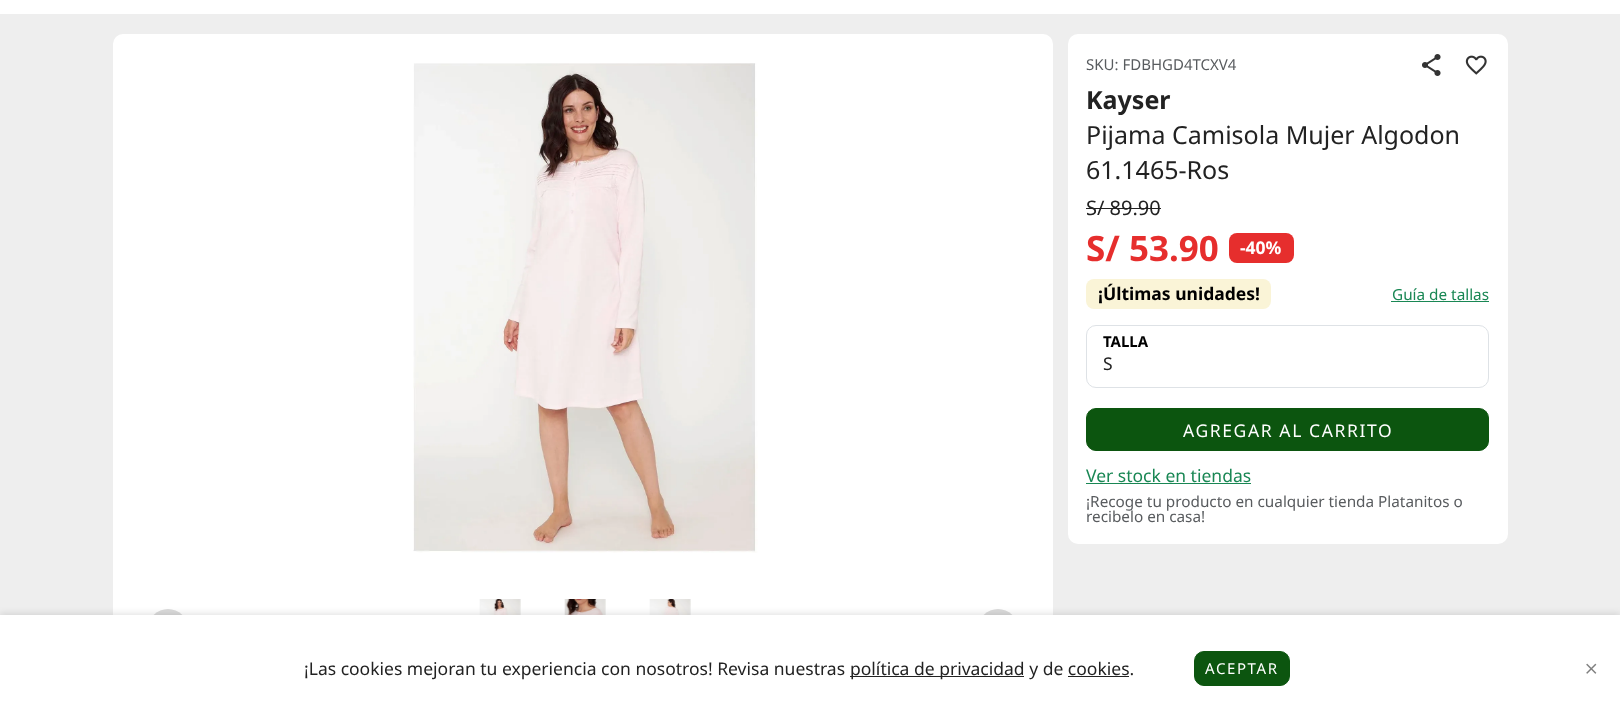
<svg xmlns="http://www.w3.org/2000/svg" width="1620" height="722">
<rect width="100%" height="100%" fill="#eee"/>
<rect width="1620" height="14" fill="#fff"/>
<rect x="113" y="34" width="940" height="665" rx="10" fill="#fff"/>
<image x="413" y="63" width="345" height="490" href="media/1.png"/>
<image x="479" y="599" width="42" height="16" href="media/2.png"/>
<image x="564" y="599" width="42" height="16" href="media/3.png"/>
<image x="649" y="599" width="42" height="16" href="media/4.png"/>
<circle cx="168" cy="629" r="20" fill="#dbdbdb"/>
<circle cx="998" cy="629" r="20" fill="#dbdbdb"/>
<rect x="1068" y="34" width="440" height="510" rx="10" fill="#fff"/>
<text x="1086" y="70" style="font-family:Noto Sans;font-size:15px;fill:#595c5f">SKU: FDBHGD4TCXV4</text>
<image x="1422" y="54" width="19" height="22" href="media/5.png"/>
<image x="1465" y="55" width="22" height="20" href="media/6.png"/>
<text x="1086" y="109" style="font-family:Noto Sans;font-size:25px;font-weight:bold;fill:#222">Kayser</text>
<text x="1086" y="144" style="font-family:Noto Sans;font-size:25px;fill:#222">Pijama Camisola Mujer Algodon</text>
<text x="1086" y="179" style="font-family:Noto Sans;font-size:25px;fill:#222">61.1465-Ros</text>
<text x="1086" y="215" style="font-family:Noto Sans;font-size:20px;fill:#222">S/ 89.90</text>
<rect x="1086" y="208" width="75" height="1" fill="#222"/>
<text x="1086" y="261" style="font-family:Noto Sans;font-size:35px;font-weight:bold;fill:#e62e2d">S/ 53.90</text>
<rect x="1229" y="233" width="65" height="30" rx="8" fill="#e62e2d"/>
<text x="1240" y="254" style="font-family:Noto Sans;font-size:17.5px;font-weight:bold;fill:#fff">-40%</text>
<rect x="1086" y="279" width="185" height="30" rx="8" fill="#faf4d7"/>
<text x="1098" y="300" style="font-family:Noto Sans;font-size:17.5px;font-weight:bold;fill:#000">¡Últimas unidades!</text>
<text x="1392" y="300" style="font-family:Noto Sans;font-size:15.3px;fill:#198754">Guía de tallas</text>
<rect x="1391" y="301" width="98" height="1" fill="#198754"/>
<rect x="1086.5" y="325.5" width="402" height="62" rx="9.5" fill="none" stroke="#dee2e6"/>
<text x="1103" y="347" style="font-family:Noto Sans;font-size:15px;font-weight:bold;fill:#000">TALLA</text>
<text x="1103" y="370" style="font-family:Noto Sans;font-size:17.5px;fill:#222">S</text>
<rect x="1086.5" y="408.5" width="402" height="42" rx="9.5" fill="#0c550f" stroke="#0c550f"/>
<text x="1183" y="437" style="font-family:Noto Sans;font-size:17.5px;letter-spacing:1.6px;fill:#fff">AGREGAR AL CARRITO</text>
<text x="1086" y="482" style="font-family:Noto Sans;font-size:17.5px;fill:#198754">Ver stock en tiendas</text>
<rect x="1086" y="483" width="165" height="1" fill="#198754"/>
<text x="1086" y="507" style="font-family:Noto Sans;font-size:15.3px;fill:#595c5f">¡Recoge tu producto en cualquier tienda Platanitos o</text>
<text x="1086" y="522" style="font-family:Noto Sans;font-size:15.3px;fill:#595c5f">recibelo en casa!</text>
<rect y="613" width="1620" height="107" fill="#0000001a" filter="blur(3px)"/>
<rect y="615" width="1620" height="107" fill="#fff"/>
<text x="304" y="675" style="font-family:Noto Sans;font-size:17.5px;fill:#222">¡Las cookies mejoran tu experiencia con nosotros! Revisa nuestras</text>
<rect x="850" y="676" width="174" height="1" fill="#222"/>
<text x="850" y="675" style="font-family:Noto Sans;font-size:17.5px;fill:#222">política de privacidad y de cookies.</text>
<rect x="1068" y="676" width="61" height="1" fill="#222"/>
<rect x="1194.5" y="651.5" width="95" height="34" rx="9.5" fill="#0c550f" stroke="#0c550f"/>
<text x="1205" y="674" style="font-family:Noto Sans;font-size:15px;letter-spacing:1.6px;fill:#fff">ACEPTAR</text>
<image x="1586" y="663" width="11" height="11" href="media/7.png"/>
</svg>
